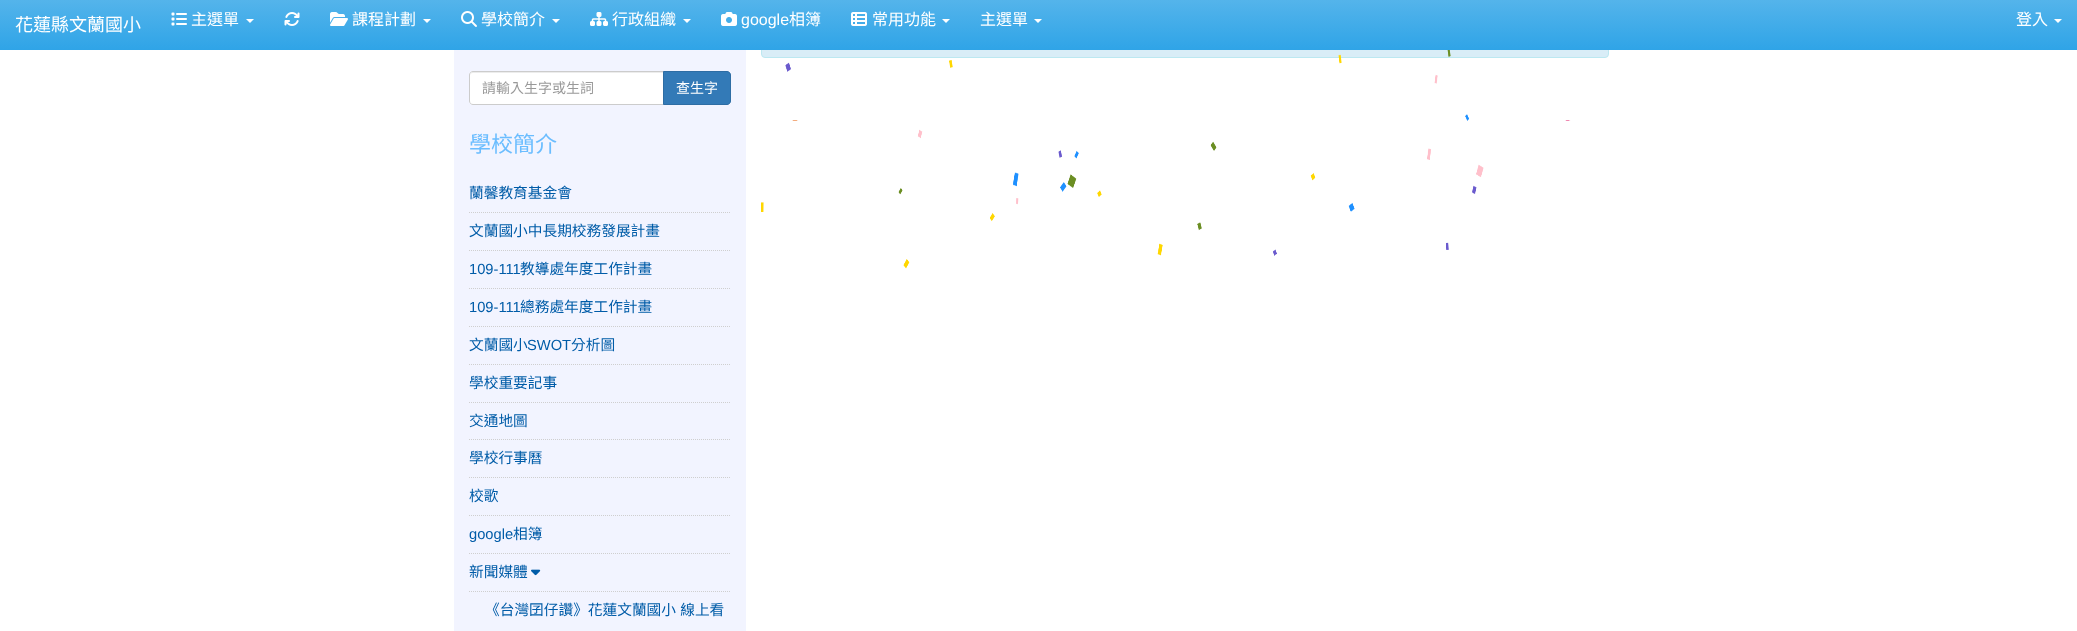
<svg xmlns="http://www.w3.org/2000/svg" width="2077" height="631">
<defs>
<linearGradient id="g1" gradientUnits="userSpaceOnUse" x1="1039" y1="0" x2="1039" y2="50"><stop offset="0" stop-color="#54b4eb"/><stop offset="1" stop-color="#2fa4e7"/></linearGradient>
</defs>
<rect width="100%" height="100%" fill="#fff"/>
<rect x="761.5" y="5.5" width="847" height="52" rx="3.5" fill="#d9edf7" stroke="#bce8f1"/>
<rect width="2077" height="50" fill="url(#g1)"/>
<text x="15" y="31" style="font-family:Noto Sans CJK TC;font-size:18px;fill:#fff">花蓮縣文蘭國小</text>
<image x="171" y="12" width="16" height="14" href="media/1.png"/>
<text x="191" y="25" style="font-family:Noto Sans CJK TC;font-size:16px;fill:#fff">主選單</text>
<path d="M246 19h8l-4 4z" fill="#fff"/>
<image x="284" y="12" width="16" height="14" href="media/2.png"/>
<image x="330" y="12" width="18" height="14" href="media/3.png"/>
<text x="352" y="25" style="font-family:Noto Sans CJK TC;font-size:16px;fill:#fff">課程計劃</text>
<path d="M423 19h8l-4 4z" fill="#fff"/>
<image x="461" y="11" width="16" height="16" href="media/4.png"/>
<text x="481" y="25" style="font-family:Noto Sans CJK TC;font-size:16px;fill:#fff">學校簡介</text>
<path d="M552 19h8l-4 4z" fill="#fff"/>
<image x="590" y="12" width="18" height="14" href="media/5.png"/>
<text x="612" y="25" style="font-family:Noto Sans CJK TC;font-size:16px;fill:#fff">行政組織</text>
<path d="M683 19h8l-4 4z" fill="#fff"/>
<image x="721" y="12" width="16" height="14" href="media/6.png"/>
<text x="741" y="25" style="font-family:Liberation Sans;font-size:16px;fill:#fff">google</text>
<text x="789" y="25" style="font-family:Noto Sans CJK TC;font-size:16px;fill:#fff">相簿</text>
<image x="851" y="12" width="16" height="14" href="media/7.png"/>
<text x="872" y="25" style="font-family:Noto Sans CJK TC;font-size:16px;fill:#fff">常用功能</text>
<path d="M942 19h8l-4 4z" fill="#fff"/>
<text x="980" y="25" style="font-family:Noto Sans CJK TC;font-size:16px;fill:#fff">主選單</text>
<path d="M1034 19h8l-4 4z" fill="#fff"/>
<text x="2016" y="25" style="font-family:Noto Sans CJK TC;font-size:16px;fill:#fff">登入</text>
<path d="M2054 19h8l-4 4z" fill="#fff"/>
<rect x="454" y="50" width="292" height="581" fill="#f2f4ff"/>
<path d="M473 71h191v34h-191c-2 0-4-2-4-4v-26c0-2 2-4 4-4z" fill="#fff"/>
<path d="M473 73h190v-1h-190c-2 0-3 2-3 4c0-2 1-3 3-3z" fill="#ececec"/>
<path d="M473 71.5h190.5v33h-190.5c-2 0-3.5-1.5-3.5-3.5v-26c0-2 1.5-3.5 3.5-3.5z" fill="none" stroke="#ccc"/>
<text x="482" y="93" style="font-family:Noto Sans CJK TC;font-size:14px;fill:#999">請輸入生字或生詞</text>
<path d="M663.5 71.5h63.5c2 0 3.5 1.5 3.5 3.5v26c0 2-1.5 3.5-3.5 3.5h-63.5z" fill="#337ab7" stroke="#2e6da4"/>
<text x="676" y="93" style="font-family:Noto Sans CJK TC;font-size:14px;fill:#fff">查生字</text>
<text x="469" y="152" style="font-family:Noto Sans CJK TC;font-size:22px;fill:#6bbdff">學校簡介</text>
<path d="M469 212.5h262" fill="none" stroke="#cfcfcf" stroke-dasharray="1 1"/>
<text x="469" y="198" style="font-family:Noto Sans CJK TC;font-size:14.7px;fill:#005ca8">蘭馨教育基金會</text>
<path d="M469 250.5h262" fill="none" stroke="#cfcfcf" stroke-dasharray="1 1"/>
<text x="469" y="236" style="font-family:Noto Sans CJK TC;font-size:14.7px;fill:#005ca8">文蘭國小中長期校務發展計畫</text>
<path d="M469 288.5h262" fill="none" stroke="#cfcfcf" stroke-dasharray="1 1"/>
<text x="469" y="274" style="font-family:Liberation Sans;font-size:14.7px;fill:#005ca8">109-111</text>
<text x="520" y="274" style="font-family:Noto Sans CJK TC;font-size:14.7px;fill:#005ca8">教導處年度工作計畫</text>
<path d="M469 326.5h262" fill="none" stroke="#cfcfcf" stroke-dasharray="1 1"/>
<text x="469" y="312" style="font-family:Liberation Sans;font-size:14.7px;fill:#005ca8">109-111</text>
<text x="520" y="312" style="font-family:Noto Sans CJK TC;font-size:14.7px;fill:#005ca8">總務處年度工作計畫</text>
<path d="M469 364.5h262" fill="none" stroke="#cfcfcf" stroke-dasharray="1 1"/>
<text x="469" y="350" style="font-family:Noto Sans CJK TC;font-size:14.7px;fill:#005ca8">文蘭國小</text>
<text x="527" y="350" style="font-family:Liberation Sans;font-size:14.7px;fill:#005ca8">SWOT</text>
<text x="571" y="350" style="font-family:Noto Sans CJK TC;font-size:14.7px;fill:#005ca8">分析圖</text>
<path d="M469 402.5h262" fill="none" stroke="#cfcfcf" stroke-dasharray="1 1"/>
<text x="469" y="388" style="font-family:Noto Sans CJK TC;font-size:14.7px;fill:#005ca8">學校重要記事</text>
<path d="M469 439.5h262" fill="none" stroke="#cfcfcf" stroke-dasharray="1 1"/>
<text x="469" y="426" style="font-family:Noto Sans CJK TC;font-size:14.7px;fill:#005ca8">交通地圖</text>
<path d="M469 477.5h262" fill="none" stroke="#cfcfcf" stroke-dasharray="1 1"/>
<text x="469" y="463" style="font-family:Noto Sans CJK TC;font-size:14.7px;fill:#005ca8">學校行事曆</text>
<path d="M469 515.5h262" fill="none" stroke="#cfcfcf" stroke-dasharray="1 1"/>
<text x="469" y="501" style="font-family:Noto Sans CJK TC;font-size:14.7px;fill:#005ca8">校歌</text>
<path d="M469 553.5h262" fill="none" stroke="#cfcfcf" stroke-dasharray="1 1"/>
<text x="469" y="539" style="font-family:Liberation Sans;font-size:14.7px;fill:#005ca8">google</text>
<text x="513" y="539" style="font-family:Noto Sans CJK TC;font-size:14.7px;fill:#005ca8">相簿</text>
<path d="M469 591.5h262" fill="none" stroke="#cfcfcf" stroke-dasharray="1 1"/>
<text x="469" y="577" style="font-family:Noto Sans CJK TC;font-size:14.7px;fill:#005ca8">新聞媒體</text>
<image x="531" y="569" width="10" height="7" href="media/8.png"/>
<text x="485" y="615" word-spacing="1" style="font-family:Noto Sans CJK TC;font-size:14.7px;fill:#005ca8">《台灣囝仔讚》花蓮文蘭國小 線上看</text>
<image x="783" y="58" width="807" height="63" href="media/9.png"/>
<image x="761" y="50" width="723" height="219" href="media/10.png"/>
</svg>
